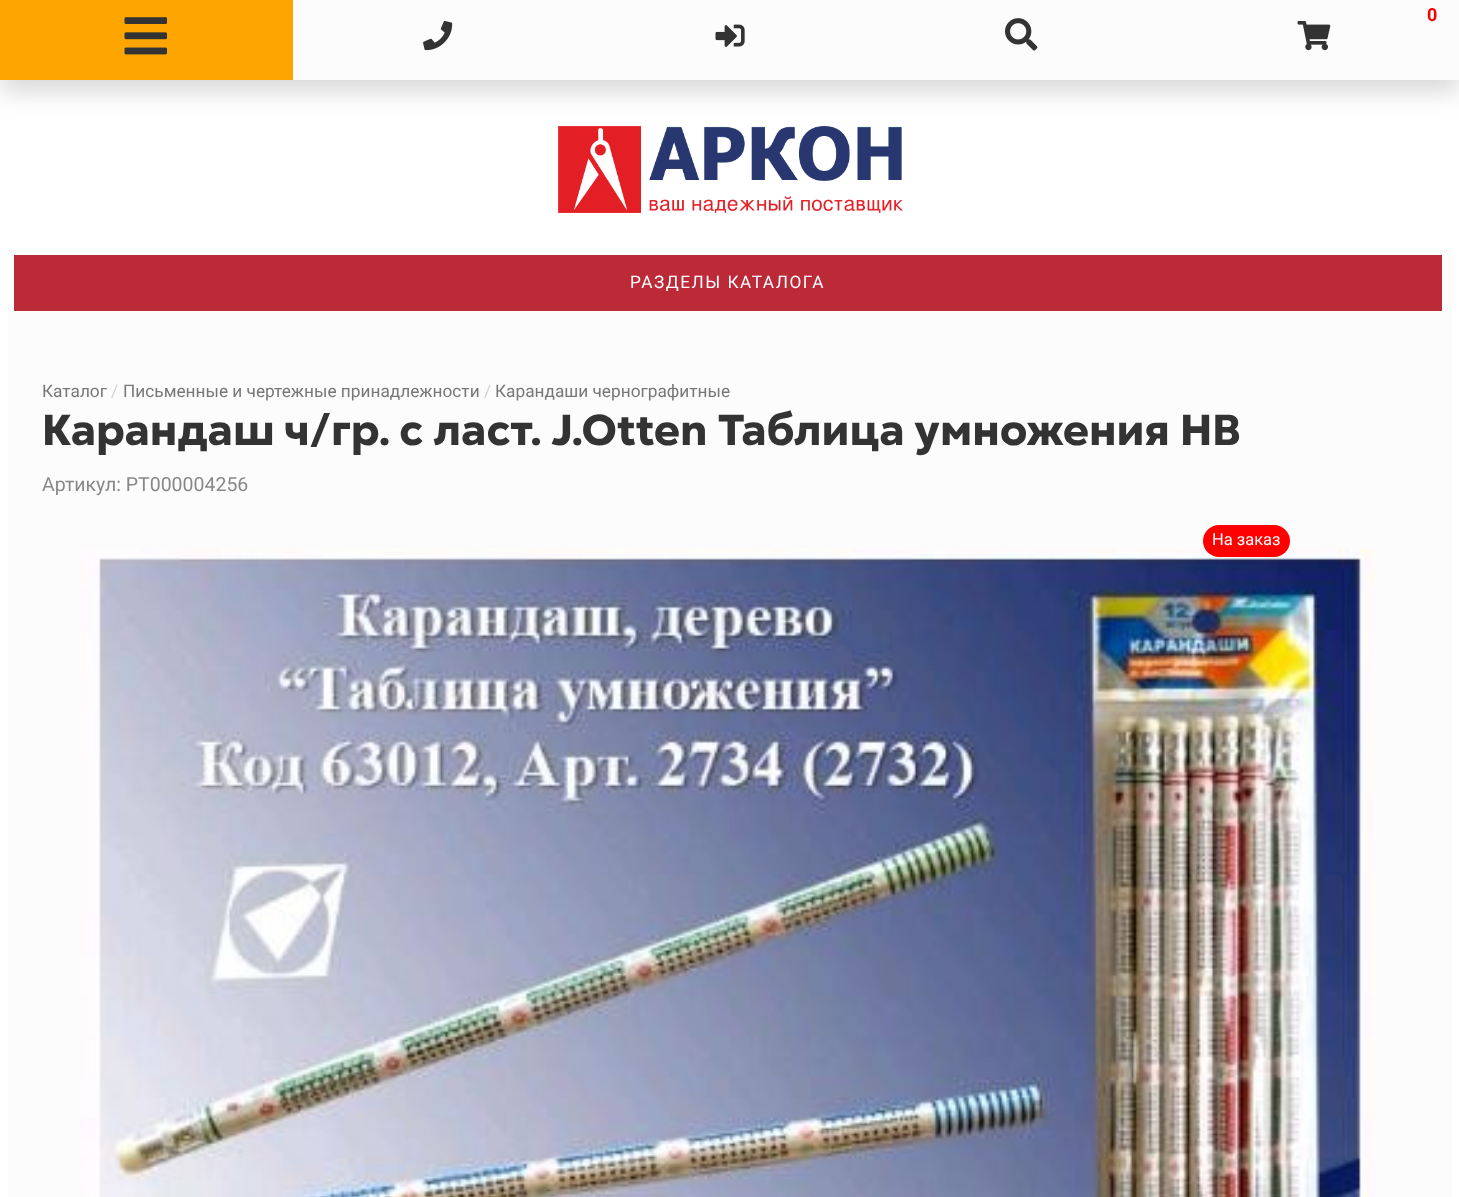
<svg xmlns="http://www.w3.org/2000/svg" width="1459" height="1197">
<rect width="100%" height="100%" fill="#fff"/>
<image x="558" y="126" width="345" height="87" href="media/6.png"/>
<rect y="12" width="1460" height="80" fill="#00000026" filter="blur(12px)"/>
<rect x="293" width="1166" height="80" fill="#fcfcfc"/>
<rect width="293" height="80" fill="#ffa500"/>
<image x="124" y="17" width="44" height="38" href="media/1.png"/>
<text x="1427" y="21" style="font-family:Roboto;font-size:18px;font-weight:bold;fill:#f00">0</text>
<image x="1297" y="21" width="34" height="30" href="media/2.png"/>
<image x="423" y="21" width="30" height="30" href="media/3.png"/>
<image x="715" y="24" width="30" height="23" href="media/4.png"/>
<image x="1005" y="18" width="33" height="33" href="media/5.png"/>
<rect x="8" y="249" width="1444" height="948" fill="#fcfcfc"/>
<rect x="14" y="255" width="1428" height="56" fill="#bc2a37"/>
<text x="630" y="288" style="font-family:Roboto;font-size:17.25px;letter-spacing:1.5px;fill:#fff">РАЗДЕЛЫ КАТАЛОГА</text>
<text x="42" y="397" style="font-family:Roboto;font-size:17.25px;fill:#777">Каталог</text>
<text x="111" y="397" style="font-family:Roboto;font-size:17.25px;fill:#d3d3d3">/</text>
<text x="123" y="397" style="font-family:Roboto;font-size:17.25px;fill:#777">Письменные и чертежные принадлежности</text>
<text x="484" y="397" style="font-family:Roboto;font-size:17.25px;fill:#d3d3d3">/</text>
<text x="495" y="397" style="font-family:Roboto;font-size:17.25px;fill:#777">Карандаши чернографитные</text>
<text x="42" y="445" word-spacing="0.25" style="font-family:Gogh;font-size:43.2px;font-weight:800;fill:#333">Карандаш ч/гр. с ласт. J.Otten Таблица умножения HВ</text>
<text x="42" y="491" style="font-family:Roboto;font-size:19.5px;fill:#888">Артикул: РТ000004256</text>
<image x="80" y="549" width="1296" height="648" href="media/7.png"/>
<rect x="1203" y="525" width="87" height="32" rx="16" fill="#f00"/>
<text x="1212" y="545" style="font-family:Roboto;font-size:16.5px;fill:#fff">На заказ</text>
</svg>
